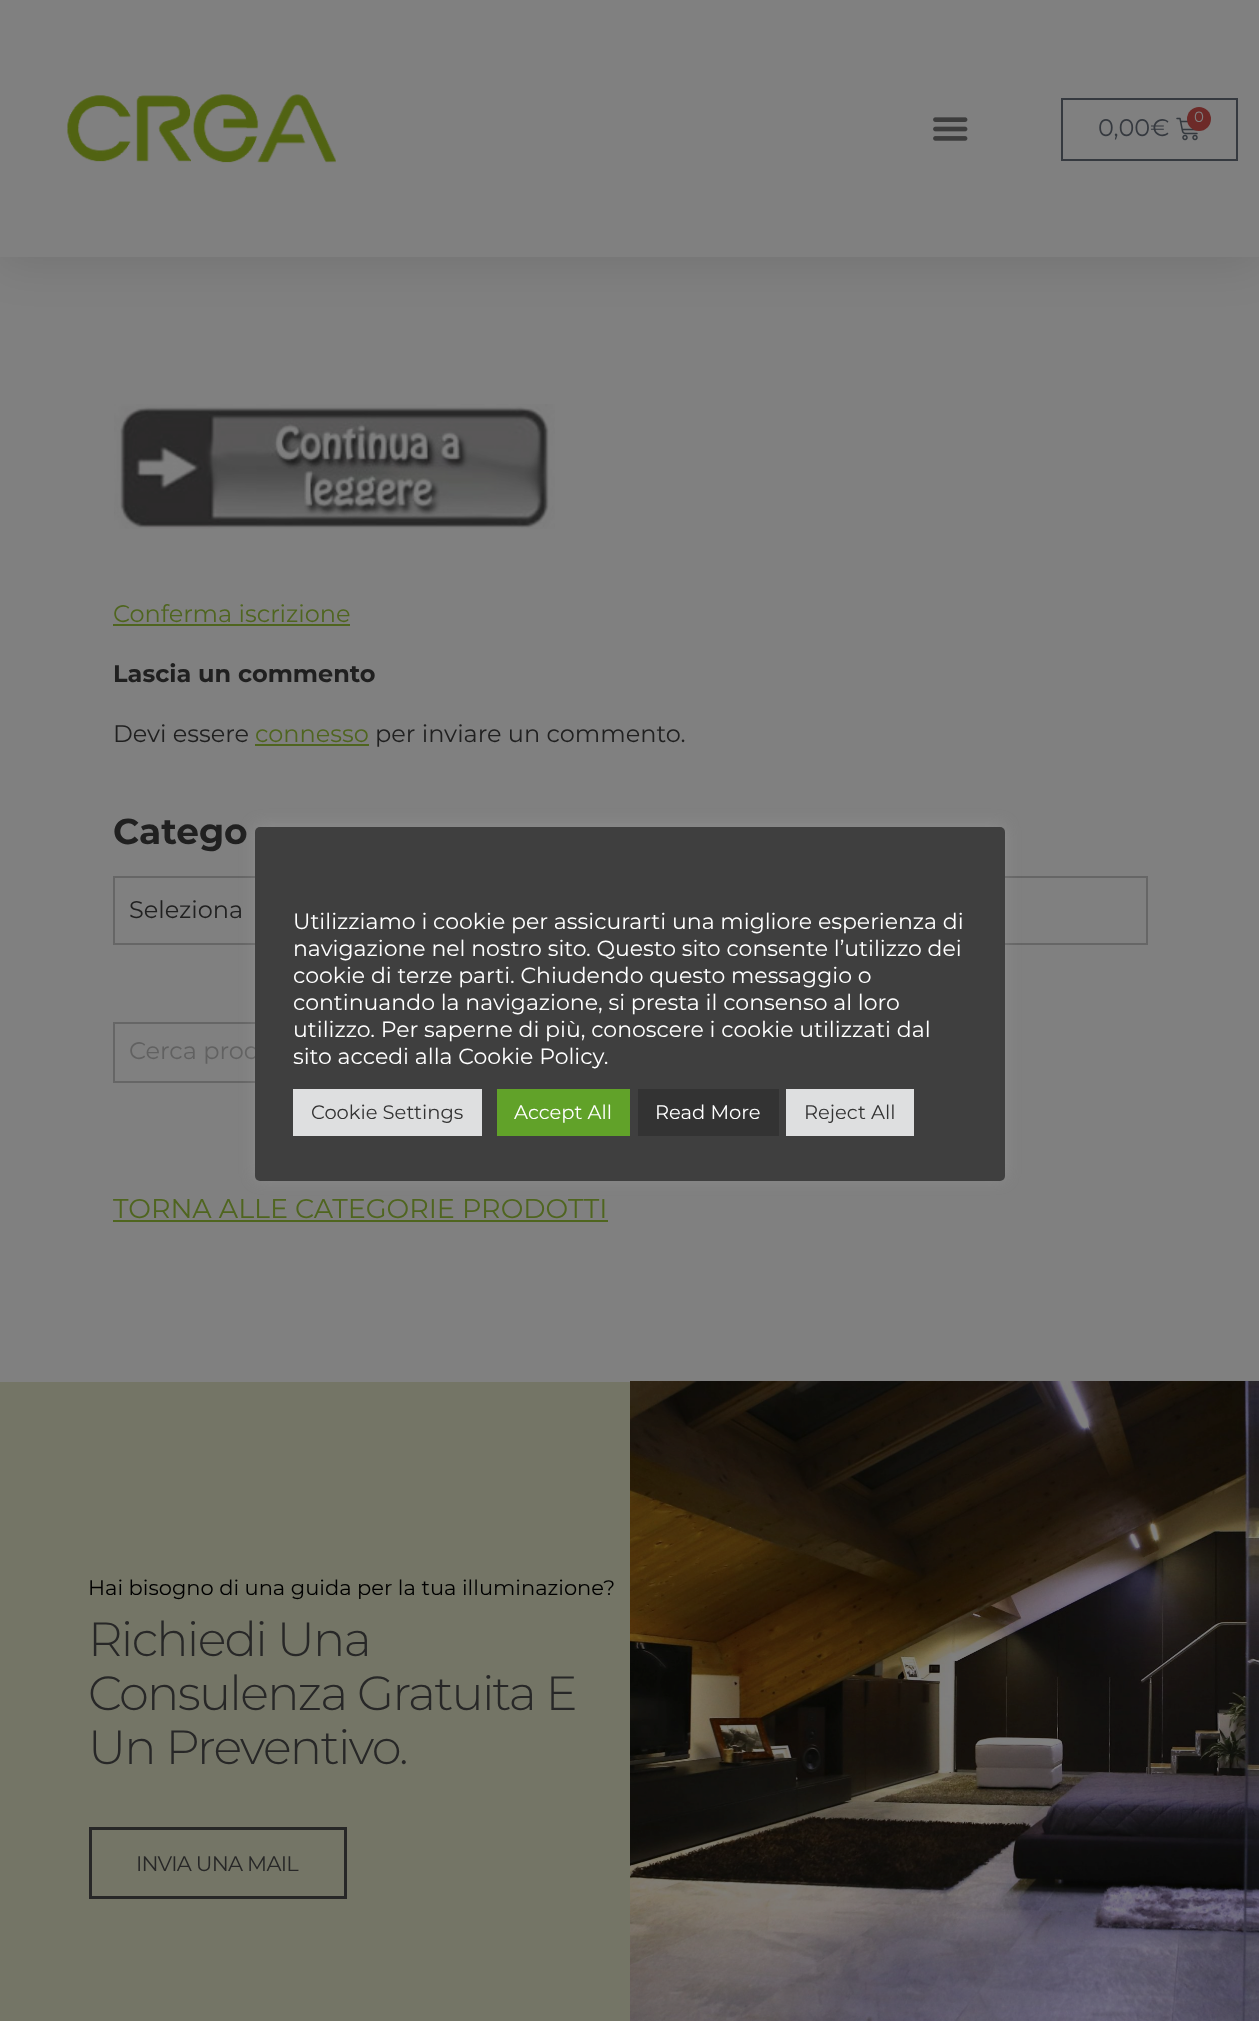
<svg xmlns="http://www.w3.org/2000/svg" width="1259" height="2021">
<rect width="100%" height="100%" fill="#808080"/>
<rect y="8" width="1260" height="256" fill="#0000001a" filter="blur(22.5px)"/>
<rect width="1259" height="257" fill="#808080"/>
<image x="67" y="94" width="269" height="69" href="media/1.png"/>
<image x="933" y="117" width="35" height="24" href="media/2.png"/>
<rect x="1062" y="99" width="175" height="61" fill="none" stroke="#35393f" stroke-width="2"/>
<image x="1176" y="117" width="22" height="24" href="media/3.png"/>
<circle cx="1199" cy="119" r="12" fill="#6d2a28"/>
<text x="1194" y="122" style="font-family:Montserrat;font-size:15px;fill:#808080">0</text>
<text x="1098" y="136" style="font-family:Montserrat;font-size:24px;fill:#35393f">0,00€</text>
<image x="114" y="404" width="441" height="125" href="media/4.png"/>
<text x="113" y="622" style="font-family:Montserrat;font-size:24px;fill:#4f651f">Conferma iscrizione</text>
<rect x="113" y="624" width="237" height="2" fill="#4f651f"/>
<text x="113" y="682" style="font-family:Montserrat;font-size:24px;font-weight:bold;fill:#202020">Lascia un commento</text>
<text x="113" y="742" style="font-family:Montserrat;font-size:24px;fill:#202020">Devi essere</text>
<text x="255" y="742" style="font-family:Montserrat;font-size:24px;fill:#4f651f">connesso</text>
<rect x="255" y="744" width="114" height="2" fill="#4f651f"/>
<text x="375" y="742" style="font-family:Montserrat;font-size:24px;fill:#202020">per inviare un commento.</text>
<text x="113" y="844" style="font-family:Montserrat;font-size:36px;font-weight:bold;fill:#202020">Catego</text>
<rect x="114" y="877" width="1033" height="67" fill="none" stroke="#666" stroke-width="2"/>
<text x="129" y="918" style="font-family:Montserrat;font-size:24px;fill:#202020">Seleziona</text>
<rect x="114" y="1023" width="515" height="59" fill="none" stroke="#666" stroke-width="2"/>
<text x="129" y="1059" style="font-family:Montserrat;font-size:24px;fill:#616161">Cerca prod</text>
<text x="113" y="1218" style="font-family:Montserrat;font-size:27px;fill:#4f651f">TORNA ALLE CATEGORIE PRODOTTI</text>
<rect x="113" y="1220" width="495" height="2" fill="#4f651f"/>
<rect x="255" y="825" width="750" height="354" rx="5" fill="#acabab4d" filter="blur(7.5px)"/>
<rect x="255" y="827" width="750" height="354" rx="5" fill="#3f3f3f"/>
<text x="293" y="929" style="font-family:Montserrat;font-size:22px;fill:#fff">Utilizziamo i cookie per assicurarti una migliore esperienza di</text>
<text x="293" y="956" style="font-family:Montserrat;font-size:22px;fill:#fff">navigazione nel nostro sito. Questo sito consente l’utilizzo dei</text>
<text x="293" y="983" style="font-family:Montserrat;font-size:22px;fill:#fff">cookie di terze parti. Chiudendo questo messaggio o</text>
<text x="293" y="1010" style="font-family:Montserrat;font-size:22px;fill:#fff">continuando la navigazione, si presta il consenso al loro</text>
<text x="293" y="1037" style="font-family:Montserrat;font-size:22px;fill:#fff">utilizzo. Per saperne di più, conoscere i cookie utilizzati dal</text>
<text x="293" y="1064" style="font-family:Montserrat;font-size:22px;fill:#fff">sito accedi alla Cookie Policy.</text>
<rect x="293" y="1089" width="189" height="47" fill="#dedfe0"/>
<text x="311" y="1119" style="font-family:Montserrat;font-size:19.5px;fill:#333">Cookie Settings</text>
<rect x="497" y="1089" width="133" height="47" fill="#61a229"/>
<text x="514" y="1119" style="font-family:Montserrat;font-size:19.5px;fill:#fff">Accept All</text>
<rect x="638" y="1089" width="141" height="47" fill="#333"/>
<text x="655" y="1119" style="font-family:Montserrat;font-size:19.5px;fill:#fff">Read More</text>
<rect x="786" y="1089" width="128" height="47" fill="#dedfe0"/>
<text x="804" y="1119" style="font-family:Montserrat;font-size:19.5px;fill:#333">Reject All</text>
<rect y="1382" width="630" height="639" fill="#747566"/>
<text x="88" y="1595" style="font-family:Montserrat;font-size:21px;fill:#000">Hai bisogno di una guida per la tua illuminazione?</text>
<text x="88" y="1656" style="font-family:Montserrat;font-size:48px;font-weight:300;letter-spacing:-1.7px;fill:#272727">Richiedi Una</text>
<text x="88" y="1710" style="font-family:Montserrat;font-size:48px;font-weight:300;letter-spacing:-1.7px;fill:#272727">Consulenza Gratuita E</text>
<text x="88" y="1764" style="font-family:Montserrat;font-size:48px;font-weight:300;letter-spacing:-1.7px;fill:#272727">Un Preventivo.</text>
<rect x="90.5" y="1828.5" width="255" height="69" fill="none" stroke="#272727" stroke-width="3"/>
<text x="136" y="1871" style="font-family:Montserrat;font-size:21px;letter-spacing:-0.75px;fill:#272727">INVIA UNA MAIL</text>
<image x="630" y="1381" width="629" height="640" href="media/5.png"/>
</svg>
